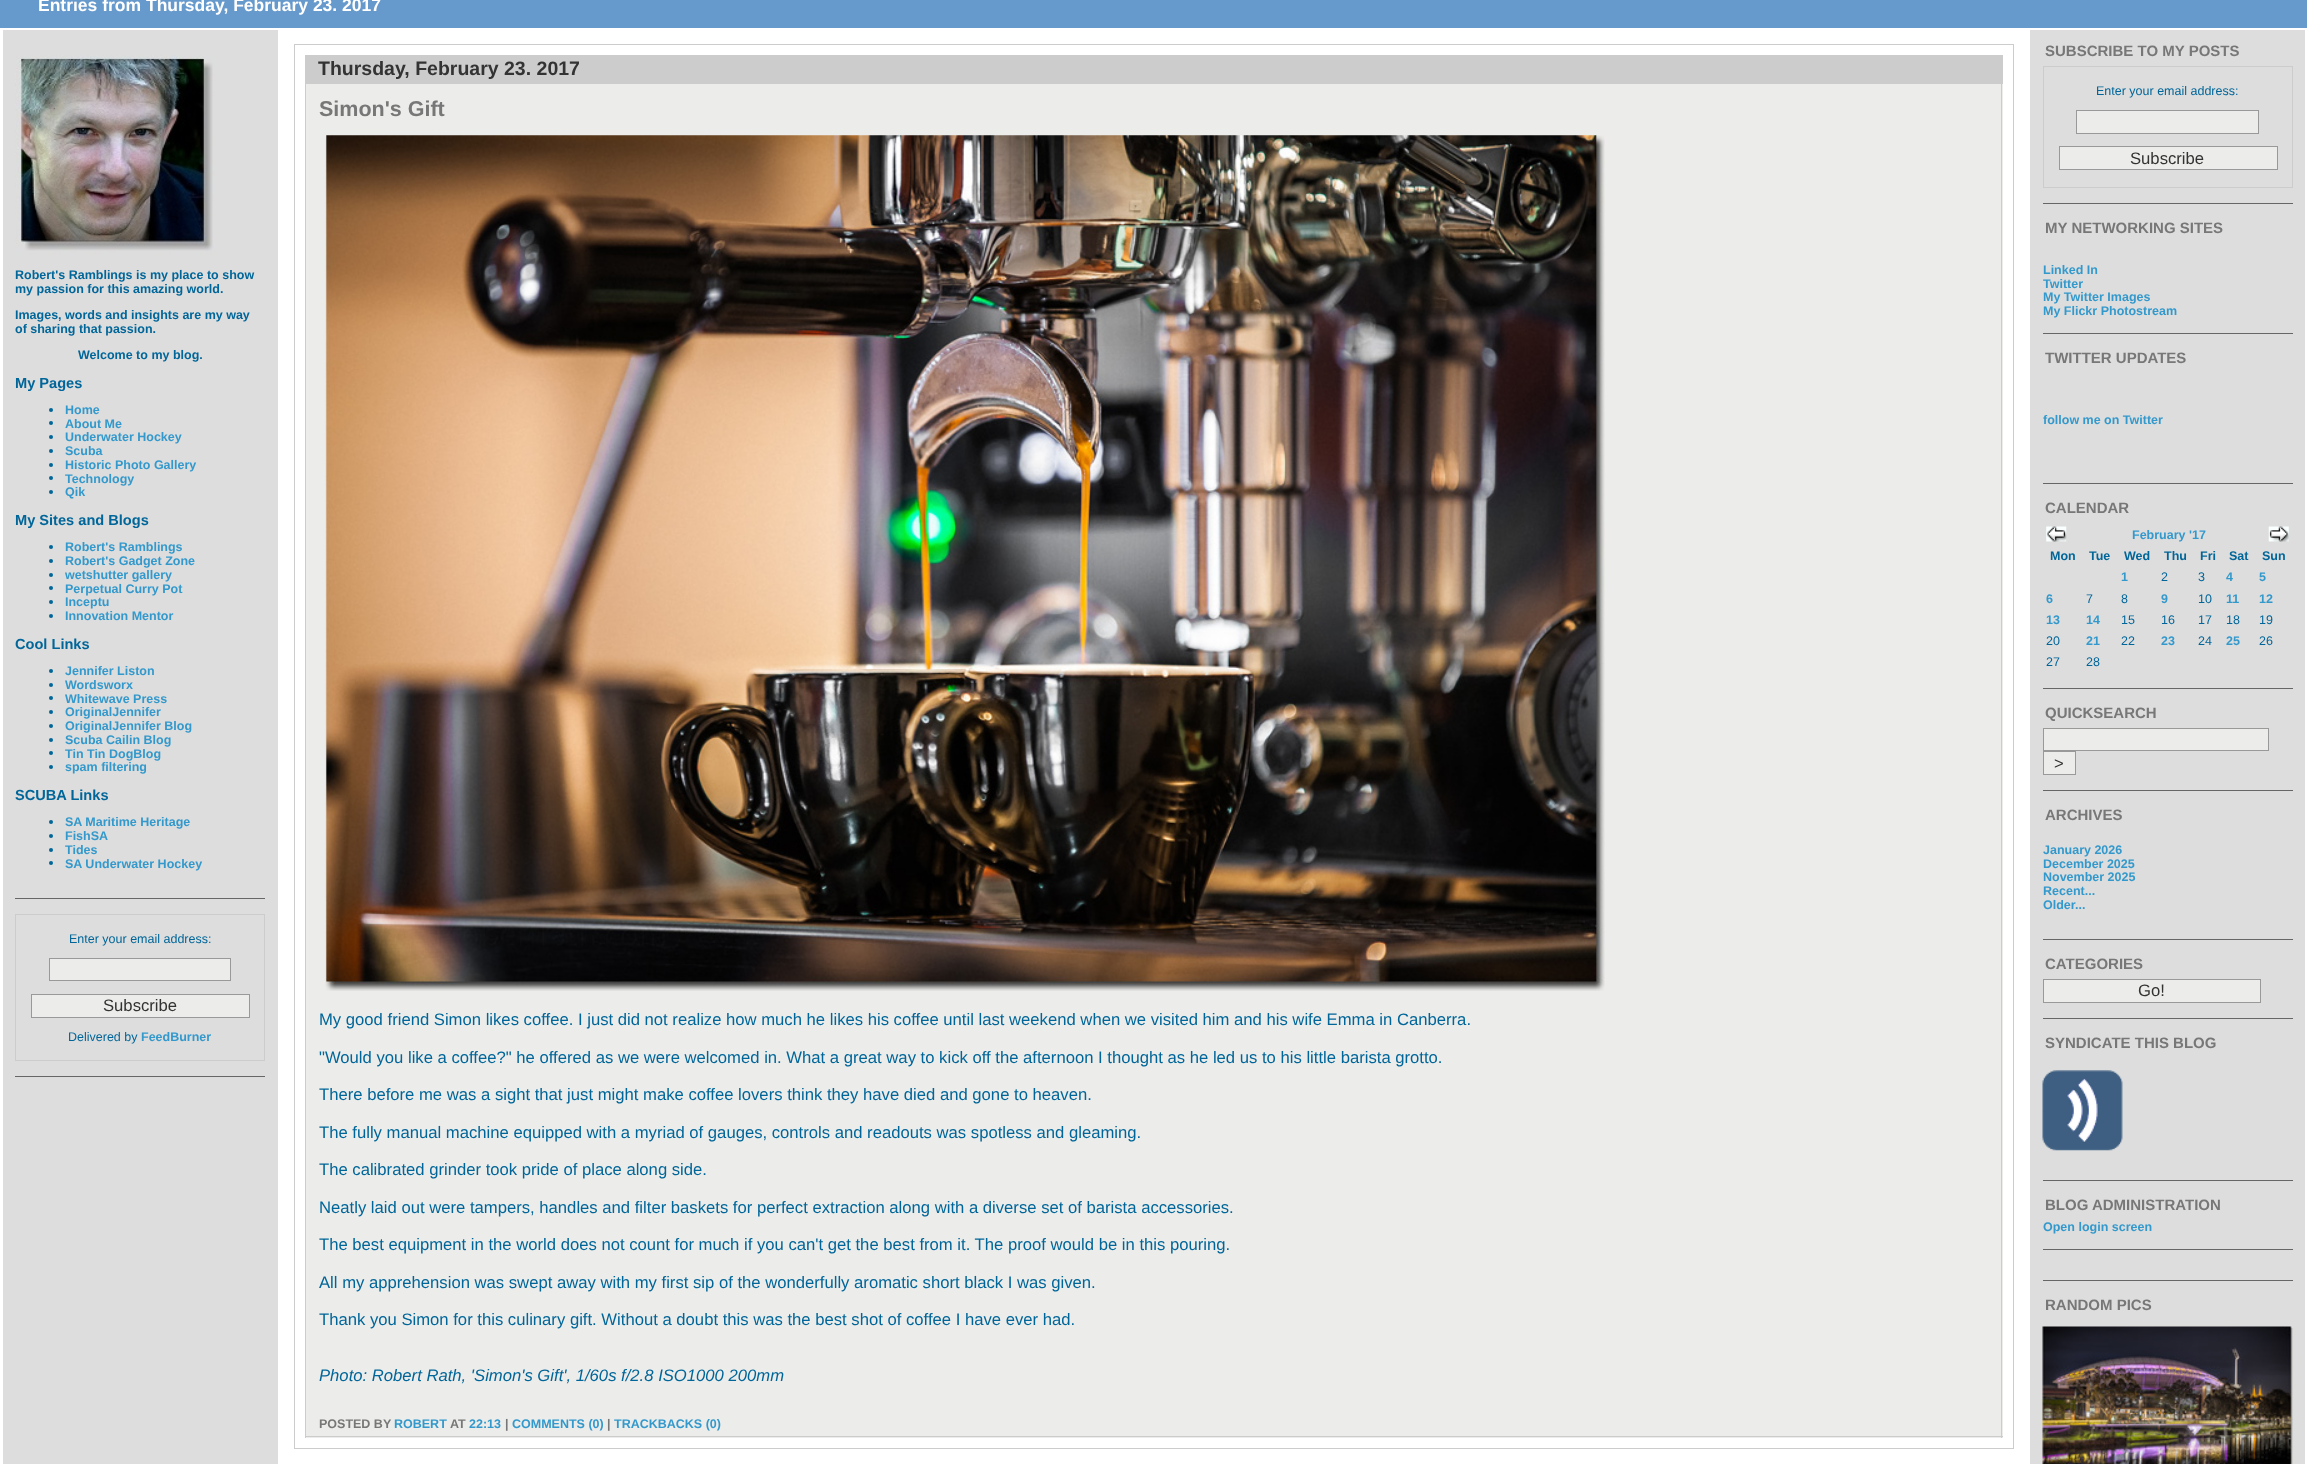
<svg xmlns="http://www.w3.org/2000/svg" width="2307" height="1464">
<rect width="100%" height="100%" fill="#fff"/>
<rect width="2307" height="28" fill="#69c"/>
<text x="38" y="11" style="font-family:Liberation Sans;font-size:17.5px;font-weight:bold;fill:#fff">Entries from Thursday, February 23. 2017</text>
<rect x="3" y="30" width="275" height="1434" fill="#ddd"/>
<rect x="15" y="898" width="250" height="1" fill="#666"/>
<image x="15" y="55" width="200" height="200" href="media/1.png"/>
<text x="15" y="279" style="font-family:Liberation Sans;font-size:12.5px;font-weight:bold;fill:#069">Robert's Ramblings is my place to show</text>
<text x="15" y="293" style="font-family:Liberation Sans;font-size:12.5px;font-weight:bold;fill:#069">my passion for this amazing world.</text>
<text x="15" y="319" style="font-family:Liberation Sans;font-size:12.5px;font-weight:bold;fill:#069">Images, words and insights are my way</text>
<text x="15" y="333" style="font-family:Liberation Sans;font-size:12.5px;font-weight:bold;fill:#069">of sharing that passion.</text>
<text x="78" y="359" style="font-family:Liberation Sans;font-size:12.5px;font-weight:bold;fill:#069">Welcome to my blog.</text>
<text x="15" y="388" style="font-family:Liberation Sans;font-size:14.6px;font-weight:bold;fill:#069">My Pages</text>
<circle cx="51" cy="410" r="2" fill="#069"/>
<text x="65" y="414" style="font-family:Liberation Sans;font-size:12.5px;font-weight:bold;fill:#39c">Home</text>
<circle cx="51" cy="423" r="2" fill="#069"/>
<text x="65" y="428" style="font-family:Liberation Sans;font-size:12.5px;font-weight:bold;fill:#39c">About Me</text>
<circle cx="51" cy="437" r="2" fill="#069"/>
<text x="65" y="441" style="font-family:Liberation Sans;font-size:12.5px;font-weight:bold;fill:#39c">Underwater Hockey</text>
<circle cx="51" cy="451" r="2" fill="#069"/>
<text x="65" y="455" style="font-family:Liberation Sans;font-size:12.5px;font-weight:bold;fill:#39c">Scuba</text>
<circle cx="51" cy="465" r="2" fill="#069"/>
<text x="65" y="469" style="font-family:Liberation Sans;font-size:12.5px;font-weight:bold;fill:#39c">Historic Photo Gallery</text>
<circle cx="51" cy="478" r="2" fill="#069"/>
<text x="65" y="483" style="font-family:Liberation Sans;font-size:12.5px;font-weight:bold;fill:#39c">Technology</text>
<circle cx="51" cy="492" r="2" fill="#069"/>
<text x="65" y="496" style="font-family:Liberation Sans;font-size:12.5px;font-weight:bold;fill:#39c">Qik</text>
<text x="15" y="525" style="font-family:Liberation Sans;font-size:14.6px;font-weight:bold;fill:#069">My Sites and Blogs</text>
<circle cx="51" cy="547" r="2" fill="#069"/>
<text x="65" y="551" style="font-family:Liberation Sans;font-size:12.5px;font-weight:bold;fill:#39c">Robert's Ramblings</text>
<circle cx="51" cy="561" r="2" fill="#069"/>
<text x="65" y="565" style="font-family:Liberation Sans;font-size:12.5px;font-weight:bold;fill:#39c">Robert's Gadget Zone</text>
<circle cx="51" cy="575" r="2" fill="#069"/>
<text x="65" y="579" style="font-family:Liberation Sans;font-size:12.5px;font-weight:bold;fill:#39c">wetshutter gallery</text>
<circle cx="51" cy="588" r="2" fill="#069"/>
<text x="65" y="593" style="font-family:Liberation Sans;font-size:12.5px;font-weight:bold;fill:#39c">Perpetual Curry Pot</text>
<circle cx="51" cy="602" r="2" fill="#069"/>
<text x="65" y="606" style="font-family:Liberation Sans;font-size:12.5px;font-weight:bold;fill:#39c">Inceptu</text>
<circle cx="51" cy="616" r="2" fill="#069"/>
<text x="65" y="620" style="font-family:Liberation Sans;font-size:12.5px;font-weight:bold;fill:#39c">Innovation Mentor</text>
<text x="15" y="649" style="font-family:Liberation Sans;font-size:14.6px;font-weight:bold;fill:#069">Cool Links</text>
<circle cx="51" cy="671" r="2" fill="#069"/>
<text x="65" y="675" style="font-family:Liberation Sans;font-size:12.5px;font-weight:bold;fill:#39c">Jennifer Liston</text>
<circle cx="51" cy="685" r="2" fill="#069"/>
<text x="65" y="689" style="font-family:Liberation Sans;font-size:12.5px;font-weight:bold;fill:#39c">Wordsworx</text>
<circle cx="51" cy="698" r="2" fill="#069"/>
<text x="65" y="703" style="font-family:Liberation Sans;font-size:12.5px;font-weight:bold;fill:#39c">Whitewave Press</text>
<circle cx="51" cy="712" r="2" fill="#069"/>
<text x="65" y="716" style="font-family:Liberation Sans;font-size:12.5px;font-weight:bold;fill:#39c">OriginalJennifer</text>
<circle cx="51" cy="726" r="2" fill="#069"/>
<text x="65" y="730" style="font-family:Liberation Sans;font-size:12.5px;font-weight:bold;fill:#39c">OriginalJennifer Blog</text>
<circle cx="51" cy="740" r="2" fill="#069"/>
<text x="65" y="744" style="font-family:Liberation Sans;font-size:12.5px;font-weight:bold;fill:#39c">Scuba Cailin Blog</text>
<circle cx="51" cy="753" r="2" fill="#069"/>
<text x="65" y="758" style="font-family:Liberation Sans;font-size:12.5px;font-weight:bold;fill:#39c">Tin Tin DogBlog</text>
<circle cx="51" cy="767" r="2" fill="#069"/>
<text x="65" y="771" style="font-family:Liberation Sans;font-size:12.5px;font-weight:bold;fill:#39c">spam filtering</text>
<text x="15" y="800" style="font-family:Liberation Sans;font-size:14.6px;font-weight:bold;fill:#069">SCUBA Links</text>
<circle cx="51" cy="822" r="2" fill="#069"/>
<text x="65" y="826" style="font-family:Liberation Sans;font-size:12.5px;font-weight:bold;fill:#39c">SA Maritime Heritage</text>
<circle cx="51" cy="836" r="2" fill="#069"/>
<text x="65" y="840" style="font-family:Liberation Sans;font-size:12.5px;font-weight:bold;fill:#39c">FishSA</text>
<circle cx="51" cy="850" r="2" fill="#069"/>
<text x="65" y="854" style="font-family:Liberation Sans;font-size:12.5px;font-weight:bold;fill:#39c">Tides</text>
<circle cx="51" cy="863" r="2" fill="#069"/>
<text x="65" y="868" style="font-family:Liberation Sans;font-size:12.5px;font-weight:bold;fill:#39c">SA Underwater Hockey</text>
<rect x="15" y="1076" width="250" height="1" fill="#666"/>
<rect x="15.5" y="914.5" width="249" height="146" fill="none" stroke="#ccc"/>
<text x="69" y="943" style="font-family:Liberation Sans;font-size:12.5px;fill:#069">Enter your email address:</text>
<rect x="49.5" y="958.5" width="181" height="22" fill="#ececea" stroke="#999"/>
<rect x="31.5" y="994.5" width="218" height="23" fill="#ececea" stroke="#999"/>
<text x="103" y="1011" style="font-family:Liberation Sans;font-size:16.67px;fill:#333">Subscribe</text>
<text x="68" y="1041" style="font-family:Liberation Sans;font-size:12.5px;fill:#069">Delivered by</text>
<text x="141" y="1041" style="font-family:Liberation Sans;font-size:12.5px;font-weight:bold;fill:#39c">FeedBurner</text>
<rect x="294.5" y="44.5" width="1719" height="1404" fill="none" stroke="#ccc"/>
<rect x="305" y="55" width="1698" height="29" fill="#ccc"/>
<text x="318" y="75" style="font-family:Liberation Sans;font-size:19.5px;font-weight:bold;fill:#333">Thursday, February 23. 2017</text>
<rect x="306" y="84" width="1697" height="1354" fill="#ececea"/>
<rect x="2001" y="83" width="1" height="1355" fill="#ccc"/>
<rect x="305" y="83" width="1" height="52" fill="#ccc"/>
<text x="319" y="116" style="font-family:Liberation Sans;font-size:21.5px;font-weight:bold;fill:#777">Simon's Gift</text>
<rect x="305" y="1436" width="1698" height="1" fill="#ccc"/>
<rect x="305" y="135" width="1" height="1303" fill="#ccc"/>
<image x="325" y="135" width="1280" height="856" href="media/2.png"/>
<text x="319" y="1025" style="font-family:Liberation Sans;font-size:16.67px;fill:#069">My good friend Simon likes coffee. I just did not realize how much he likes his coffee until last weekend when we visited him and his wife Emma in Canberra.</text>
<text x="319" y="1063" style="font-family:Liberation Sans;font-size:16.67px;fill:#069">"Would you like a coffee?" he offered as we were welcomed in. What a great way to kick off the afternoon I thought as he led us to his little barista grotto.</text>
<text x="319" y="1100" style="font-family:Liberation Sans;font-size:16.67px;fill:#069">There before me was a sight that just might make coffee lovers think they have died and gone to heaven.</text>
<text x="319" y="1138" style="font-family:Liberation Sans;font-size:16.67px;fill:#069">The fully manual machine equipped with a myriad of gauges, controls and readouts was spotless and gleaming.</text>
<text x="319" y="1175" style="font-family:Liberation Sans;font-size:16.67px;fill:#069">The calibrated grinder took pride of place along side.</text>
<text x="319" y="1213" style="font-family:Liberation Sans;font-size:16.67px;fill:#069">Neatly laid out were tampers, handles and filter baskets for perfect extraction along with a diverse set of barista accessories.</text>
<text x="319" y="1250" style="font-family:Liberation Sans;font-size:16.67px;fill:#069">The best equipment in the world does not count for much if you can't get the best from it. The proof would be in this pouring.</text>
<text x="319" y="1288" style="font-family:Liberation Sans;font-size:16.67px;fill:#069">All my apprehension was swept away with my first sip of the wonderfully aromatic short black I was given.</text>
<text x="319" y="1325" style="font-family:Liberation Sans;font-size:16.67px;fill:#069">Thank you Simon for this culinary gift. Without a doubt this was the best shot of coffee I have ever had.</text>
<text x="319" y="1381" style="font-family:Liberation Sans;font-size:16.67px;font-style:italic;fill:#069">Photo: Robert Rath, 'Simon's Gift', 1/60s f/2.8 ISO1000 200mm</text>
<text x="319" y="1428" style="font-family:Liberation Sans;font-size:12.5px;font-weight:bold;fill:#777">POSTED BY</text>
<text x="394" y="1428" style="font-family:Liberation Sans;font-size:12.5px;font-weight:bold;fill:#39c">ROBERT</text>
<text x="450" y="1428" style="font-family:Liberation Sans;font-size:12.5px;font-weight:bold;fill:#777">AT</text>
<text x="469" y="1428" style="font-family:Liberation Sans;font-size:12.5px;font-weight:bold;fill:#39c">22:13</text>
<text x="505" y="1428" style="font-family:Liberation Sans;font-size:12.5px;font-weight:bold;fill:#777">|</text>
<text x="512" y="1428" style="font-family:Liberation Sans;font-size:12.5px;font-weight:bold;fill:#39c">COMMENTS (0)</text>
<text x="607" y="1428" style="font-family:Liberation Sans;font-size:12.5px;font-weight:bold;fill:#777">|</text>
<text x="614" y="1428" style="font-family:Liberation Sans;font-size:12.5px;font-weight:bold;fill:#39c">TRACKBACKS (0)</text>
<rect x="2030" y="30" width="275" height="1434" fill="#ddd"/>
<rect x="2043" y="203" width="250" height="1" fill="#666"/>
<text x="2045" y="56" style="font-family:Liberation Sans;font-size:15px;font-weight:bold;fill:#777">SUBSCRIBE TO MY POSTS</text>
<rect x="2043.5" y="66.5" width="249" height="121" fill="none" stroke="#ccc"/>
<text x="2096" y="95" style="font-family:Liberation Sans;font-size:12.5px;fill:#069">Enter your email address:</text>
<rect x="2076.5" y="110.5" width="182" height="23" fill="#ececea" stroke="#999"/>
<rect x="2059.5" y="146.5" width="218" height="23" fill="#ececea" stroke="#999"/>
<text x="2130" y="164" style="font-family:Liberation Sans;font-size:16.67px;fill:#333">Subscribe</text>
<rect x="2043" y="333" width="250" height="1" fill="#666"/>
<text x="2045" y="233" style="font-family:Liberation Sans;font-size:15px;font-weight:bold;fill:#777">MY NETWORKING SITES</text>
<text x="2043" y="274" style="font-family:Liberation Sans;font-size:12.5px;font-weight:bold;fill:#39c">Linked In</text>
<text x="2043" y="288" style="font-family:Liberation Sans;font-size:12.5px;font-weight:bold;fill:#39c">Twitter</text>
<text x="2043" y="301" style="font-family:Liberation Sans;font-size:12.5px;font-weight:bold;fill:#39c">My Twitter Images</text>
<text x="2043" y="315" style="font-family:Liberation Sans;font-size:12.5px;font-weight:bold;fill:#39c">My Flickr Photostream</text>
<rect x="2043" y="483" width="250" height="1" fill="#666"/>
<text x="2045" y="363" style="font-family:Liberation Sans;font-size:15px;font-weight:bold;fill:#777">TWITTER UPDATES</text>
<text x="2043" y="424" style="font-family:Liberation Sans;font-size:12.5px;font-weight:bold;fill:#39c">follow me on Twitter</text>
<rect x="2043" y="688" width="250" height="1" fill="#666"/>
<text x="2045" y="513" style="font-family:Liberation Sans;font-size:15px;font-weight:bold;fill:#777">CALENDAR</text>
<image x="2046" y="526" width="21" height="16" href="media/3.png"/>
<text x="2132" y="539" style="font-family:Liberation Sans;font-size:12.5px;font-weight:bold;fill:#39c">February '17</text>
<image x="2268" y="526" width="21" height="16" href="media/4.png"/>
<text x="2050" y="560" style="font-family:Liberation Sans;font-size:12.5px;font-weight:bold;fill:#069">Mon</text>
<text x="2089" y="560" style="font-family:Liberation Sans;font-size:12.5px;font-weight:bold;fill:#069">Tue</text>
<text x="2124" y="560" style="font-family:Liberation Sans;font-size:12.5px;font-weight:bold;fill:#069">Wed</text>
<text x="2164" y="560" style="font-family:Liberation Sans;font-size:12.5px;font-weight:bold;fill:#069">Thu</text>
<text x="2200" y="560" style="font-family:Liberation Sans;font-size:12.5px;font-weight:bold;fill:#069">Fri</text>
<text x="2229" y="560" style="font-family:Liberation Sans;font-size:12.5px;font-weight:bold;fill:#069">Sat</text>
<text x="2262" y="560" style="font-family:Liberation Sans;font-size:12.5px;font-weight:bold;fill:#069">Sun</text>
<text x="2121" y="581" style="font-family:Liberation Sans;font-size:12.5px;font-weight:bold;fill:#39c">1</text>
<text x="2161" y="581" style="font-family:Liberation Sans;font-size:12.5px;fill:#069">2</text>
<text x="2198" y="581" style="font-family:Liberation Sans;font-size:12.5px;fill:#069">3</text>
<text x="2226" y="581" style="font-family:Liberation Sans;font-size:12.5px;font-weight:bold;fill:#39c">4</text>
<text x="2259" y="581" style="font-family:Liberation Sans;font-size:12.5px;font-weight:bold;fill:#39c">5</text>
<text x="2046" y="603" style="font-family:Liberation Sans;font-size:12.5px;font-weight:bold;fill:#39c">6</text>
<text x="2086" y="603" style="font-family:Liberation Sans;font-size:12.5px;fill:#069">7</text>
<text x="2121" y="603" style="font-family:Liberation Sans;font-size:12.5px;fill:#069">8</text>
<text x="2161" y="603" style="font-family:Liberation Sans;font-size:12.5px;font-weight:bold;fill:#39c">9</text>
<text x="2198" y="603" style="font-family:Liberation Sans;font-size:12.5px;fill:#069">10</text>
<text x="2226" y="603" style="font-family:Liberation Sans;font-size:12.5px;font-weight:bold;fill:#39c">11</text>
<text x="2259" y="603" style="font-family:Liberation Sans;font-size:12.5px;font-weight:bold;fill:#39c">12</text>
<text x="2046" y="624" style="font-family:Liberation Sans;font-size:12.5px;font-weight:bold;fill:#39c">13</text>
<text x="2086" y="624" style="font-family:Liberation Sans;font-size:12.5px;font-weight:bold;fill:#39c">14</text>
<text x="2121" y="624" style="font-family:Liberation Sans;font-size:12.5px;fill:#069">15</text>
<text x="2161" y="624" style="font-family:Liberation Sans;font-size:12.5px;fill:#069">16</text>
<text x="2198" y="624" style="font-family:Liberation Sans;font-size:12.5px;fill:#069">17</text>
<text x="2226" y="624" style="font-family:Liberation Sans;font-size:12.5px;fill:#069">18</text>
<text x="2259" y="624" style="font-family:Liberation Sans;font-size:12.5px;fill:#069">19</text>
<text x="2046" y="645" style="font-family:Liberation Sans;font-size:12.5px;fill:#069">20</text>
<text x="2086" y="645" style="font-family:Liberation Sans;font-size:12.5px;font-weight:bold;fill:#39c">21</text>
<text x="2121" y="645" style="font-family:Liberation Sans;font-size:12.5px;fill:#069">22</text>
<text x="2161" y="645" style="font-family:Liberation Sans;font-size:12.5px;font-weight:bold;fill:#39c">23</text>
<text x="2198" y="645" style="font-family:Liberation Sans;font-size:12.5px;fill:#069">24</text>
<text x="2226" y="645" style="font-family:Liberation Sans;font-size:12.5px;font-weight:bold;fill:#39c">25</text>
<text x="2259" y="645" style="font-family:Liberation Sans;font-size:12.5px;fill:#069">26</text>
<text x="2046" y="666" style="font-family:Liberation Sans;font-size:12.5px;fill:#069">27</text>
<text x="2086" y="666" style="font-family:Liberation Sans;font-size:12.5px;fill:#069">28</text>
<rect x="2043" y="790" width="250" height="1" fill="#666"/>
<text x="2045" y="718" style="font-family:Liberation Sans;font-size:15px;font-weight:bold;fill:#777">QUICKSEARCH</text>
<rect x="2043.5" y="728.5" width="225" height="22" fill="#ececea" stroke="#999"/>
<rect x="2043.5" y="751.5" width="32" height="23" fill="#ececea" stroke="#999"/>
<text x="2054" y="769" style="font-family:Liberation Sans;font-size:16.67px;fill:#333">&gt;</text>
<rect x="2043" y="939" width="250" height="1" fill="#666"/>
<text x="2045" y="820" style="font-family:Liberation Sans;font-size:15px;font-weight:bold;fill:#777">ARCHIVES</text>
<text x="2043" y="854" style="font-family:Liberation Sans;font-size:12.5px;font-weight:bold;fill:#39c">January 2026</text>
<text x="2043" y="868" style="font-family:Liberation Sans;font-size:12.5px;font-weight:bold;fill:#39c">December 2025</text>
<text x="2043" y="881" style="font-family:Liberation Sans;font-size:12.5px;font-weight:bold;fill:#39c">November 2025</text>
<text x="2043" y="895" style="font-family:Liberation Sans;font-size:12.5px;font-weight:bold;fill:#39c">Recent...</text>
<text x="2043" y="909" style="font-family:Liberation Sans;font-size:12.5px;font-weight:bold;fill:#39c">Older...</text>
<rect x="2043" y="1018" width="250" height="1" fill="#666"/>
<text x="2045" y="969" style="font-family:Liberation Sans;font-size:15px;font-weight:bold;fill:#777">CATEGORIES</text>
<rect x="2043.5" y="979.5" width="217" height="23" fill="#ececea" stroke="#999"/>
<text x="2138" y="996" style="font-family:Liberation Sans;font-size:16.67px;fill:#333">Go!</text>
<rect x="2043" y="1180" width="250" height="1" fill="#666"/>
<text x="2045" y="1048" style="font-family:Liberation Sans;font-size:15px;font-weight:bold;fill:#777">SYNDICATE THIS BLOG</text>
<image x="2042" y="1070" width="81" height="81" href="media/5.png"/>
<rect x="2043" y="1249" width="250" height="1" fill="#666"/>
<text x="2045" y="1210" style="font-family:Liberation Sans;font-size:15px;font-weight:bold;fill:#777">BLOG ADMINISTRATION</text>
<text x="2043" y="1231" style="font-family:Liberation Sans;font-size:12.5px;font-weight:bold;fill:#39c">Open login screen</text>
<rect x="2043" y="1280" width="250" height="1" fill="#666"/>
<text x="2045" y="1310" style="font-family:Liberation Sans;font-size:15px;font-weight:bold;fill:#777">RANDOM PICS</text>
<image x="2042" y="1326" width="251" height="138" href="media/6.png"/>
</svg>
